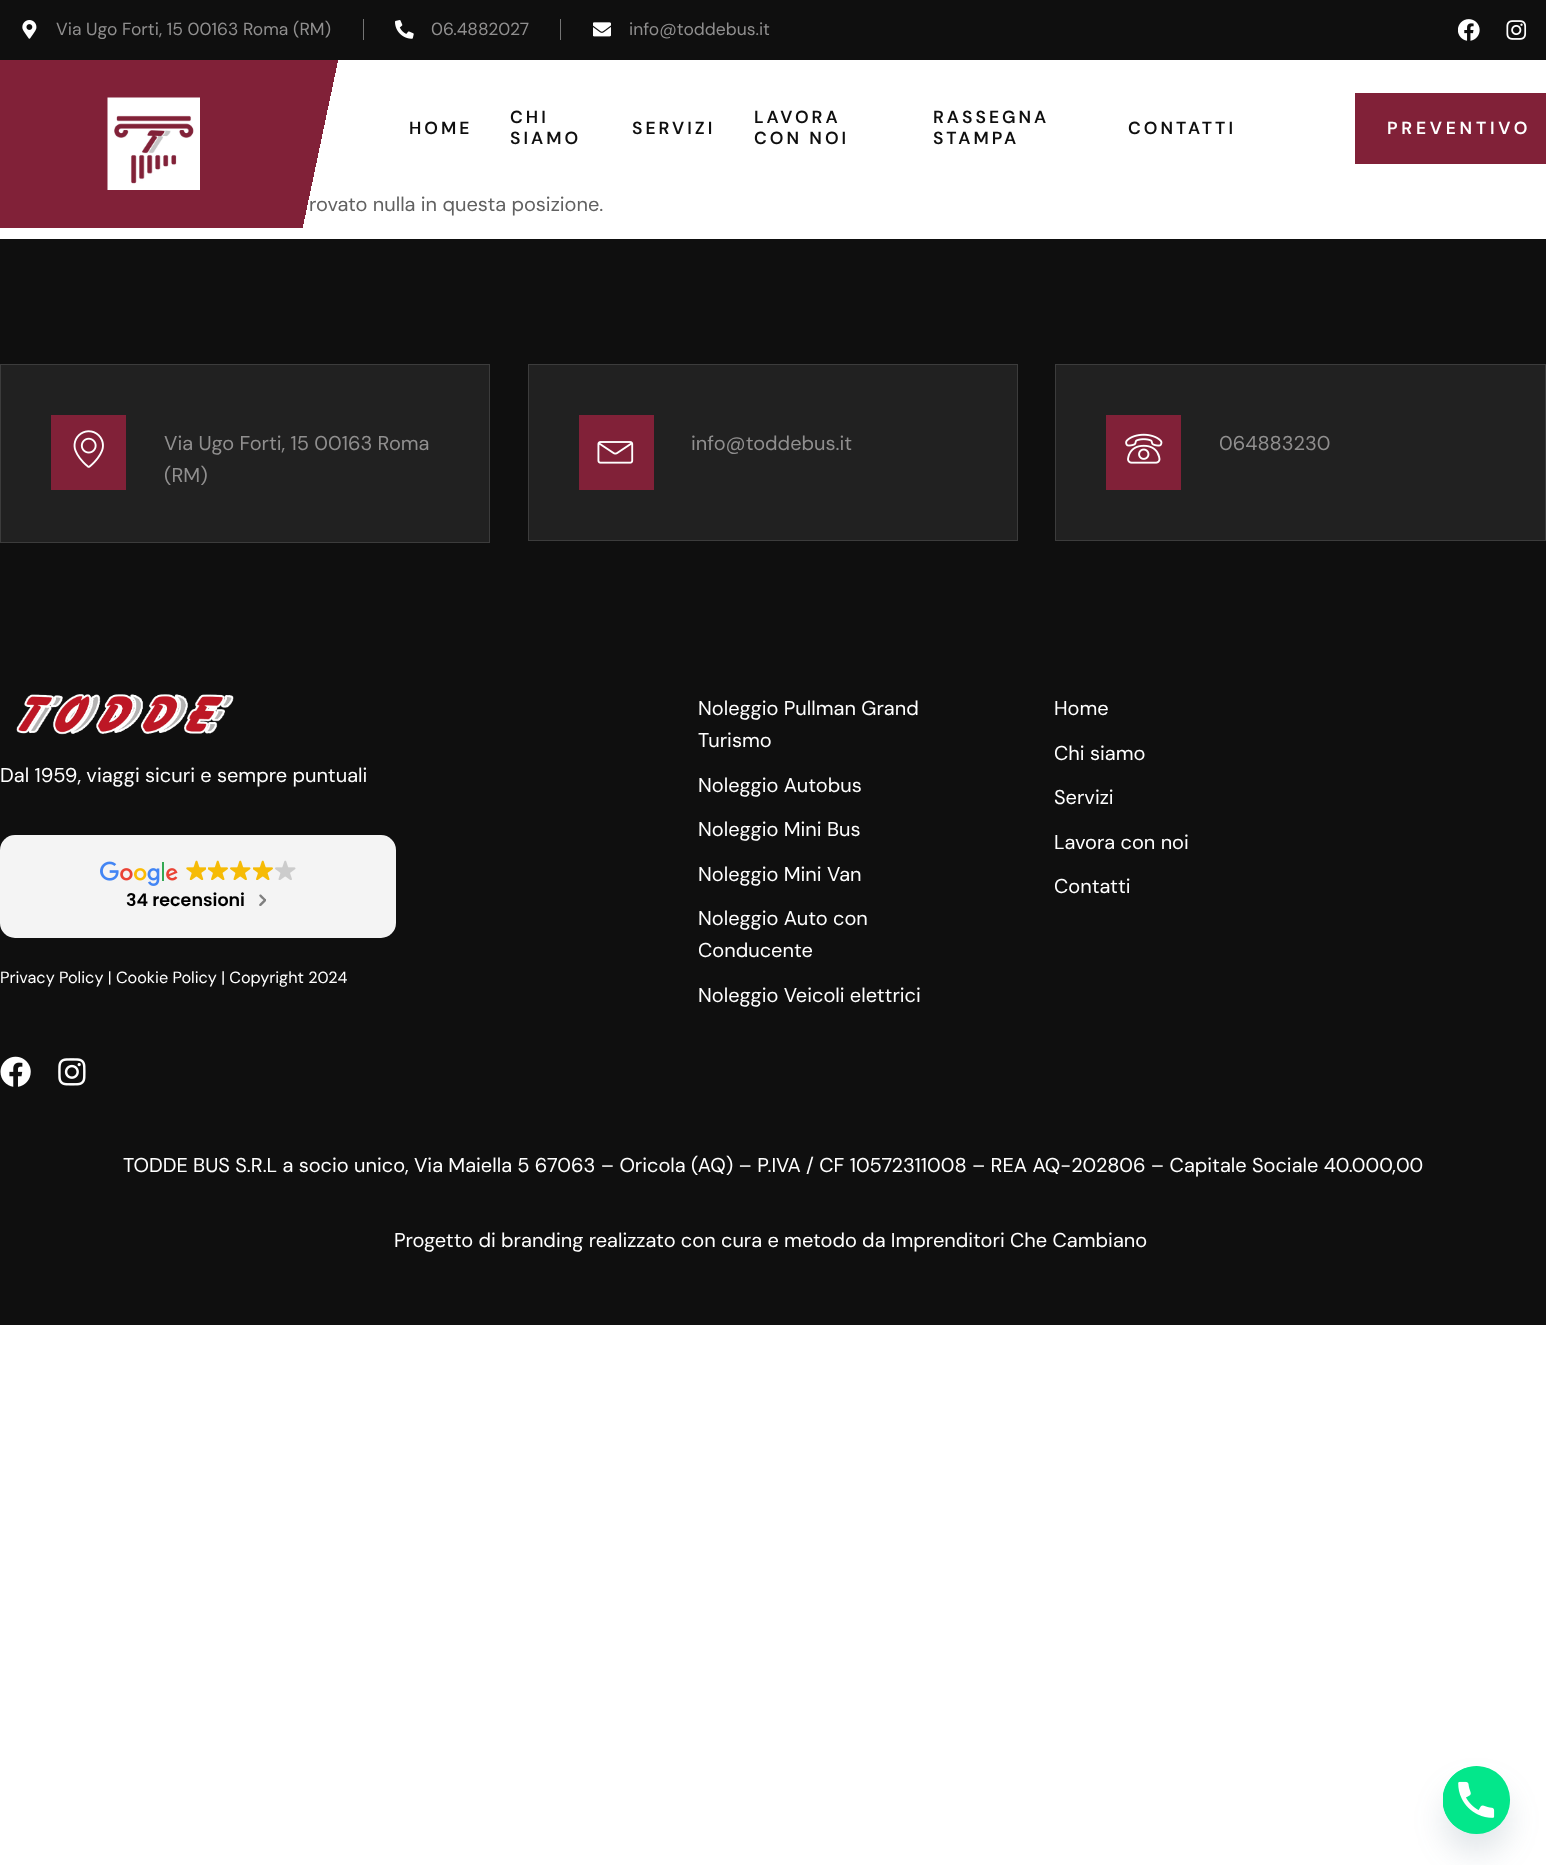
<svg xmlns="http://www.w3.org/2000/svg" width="1546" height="1865">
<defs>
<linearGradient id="g1" gradientUnits="userSpaceOnUse" x1="-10" y1="106" x2="350" y2="182"><stop offset="0.9" stop-color="#812138"/><stop offset="0.9" stop-color="#812138" stop-opacity="0"/></linearGradient>
</defs>
<rect width="100%" height="100%" fill="#fff"/>
<rect width="1546" height="60" fill="#0f0f0f"/>
<image x="22" y="20" width="15" height="19" href="media/1.png"/>
<text x="56" y="35" style="font-family:DM Sans;font-size:17.5px;fill:#908f8f">Via Ugo Forti, 15 00163 Roma (RM)</text>
<rect x="363" y="19" width="1" height="21" fill="#747474"/>
<image x="395" y="20" width="19" height="19" href="media/2.png"/>
<text x="431" y="35" style="font-family:DM Sans;font-size:17.5px;fill:#908f8f">06.4882027</text>
<rect x="560" y="19" width="1" height="21" fill="#747474"/>
<image x="593" y="22" width="18" height="15" href="media/3.png"/>
<text x="629" y="35" style="font-family:DM Sans;font-size:17.5px;fill:#908f8f">info@toddebus.it</text>
<image x="1458" y="19" width="22" height="22" href="media/4.png"/>
<image x="1506" y="20" width="21" height="20" href="media/5.png"/>
<text x="309" y="211" style="font-family:DM Sans;font-size:20px;fill:#616161">rovato nulla in questa posizione.</text>
<rect y="60" width="338" height="168" fill="url(#g1)"/>
<image x="107" y="97" width="93" height="93" href="media/6.png"/>
<text x="409" y="134" style="font-family:DM Sans;font-size:17.5px;font-weight:600;letter-spacing:3px;fill:#0f0f0f">HOME</text>
<text x="510" y="123" style="font-family:DM Sans;font-size:17.5px;font-weight:600;letter-spacing:3px;fill:#0f0f0f">CHI</text>
<text x="510" y="144" style="font-family:DM Sans;font-size:17.5px;font-weight:600;letter-spacing:3px;fill:#0f0f0f">SIAMO</text>
<text x="632" y="134" style="font-family:DM Sans;font-size:17.5px;font-weight:600;letter-spacing:3px;fill:#0f0f0f">SERVIZI</text>
<text x="754" y="123" style="font-family:DM Sans;font-size:17.5px;font-weight:600;letter-spacing:3px;fill:#0f0f0f">LAVORA</text>
<text x="754" y="144" style="font-family:DM Sans;font-size:17.5px;font-weight:600;letter-spacing:3px;fill:#0f0f0f">CON NOI</text>
<text x="933" y="123" style="font-family:DM Sans;font-size:17.5px;font-weight:600;letter-spacing:3px;fill:#0f0f0f">RASSEGNA</text>
<text x="933" y="144" style="font-family:DM Sans;font-size:17.5px;font-weight:600;letter-spacing:3px;fill:#0f0f0f">STAMPA</text>
<text x="1128" y="134" style="font-family:DM Sans;font-size:17.5px;font-weight:600;letter-spacing:3px;fill:#0f0f0f">CONTATTI</text>
<rect x="1355" y="93" width="191" height="71" fill="#812138"/>
<text x="1387" y="134" style="font-family:DM Sans;font-size:17.5px;font-weight:600;letter-spacing:3.75px;fill:#fff">PREVENTIVO</text>
<rect y="239" width="1546" height="1086" fill="#0f0f0f"/>
<rect x="0.5" y="364.5" width="489" height="178" fill="#212121" stroke="#3c3c3c"/>
<rect x="51" y="415" width="75" height="75" fill="#812138"/>
<image x="73" y="430" width="31" height="38" href="media/7.png"/>
<text x="164" y="450" style="font-family:DM Sans;font-size:20px;fill:#908f8f">Via Ugo Forti, 15 00163 Roma</text>
<text x="164" y="482" style="font-family:DM Sans;font-size:20px;fill:#908f8f">(RM)</text>
<rect x="528.5" y="364.5" width="489" height="176" fill="#212121" stroke="#3c3c3c"/>
<rect x="579" y="415" width="75" height="75" fill="#812138"/>
<image x="597" y="441" width="37" height="23" href="media/8.png"/>
<text x="691" y="450" style="font-family:DM Sans;font-size:20px;fill:#908f8f">info@toddebus.it</text>
<rect x="1055.5" y="364.5" width="490" height="176" fill="#212121" stroke="#3c3c3c"/>
<rect x="1106" y="415" width="75" height="75" fill="#812138"/>
<image x="1125" y="433" width="38" height="31" href="media/9.png"/>
<text x="1219" y="450" style="font-family:DM Sans;font-size:20px;fill:#908f8f">064883230</text>
<image x="16" y="694" width="218" height="41" href="media/10.png"/>
<text x="0" y="782" style="font-family:DM Sans;font-size:20px;fill:#fff">Dal 1959, viaggi sicuri e sempre puntuali</text>
<rect y="835" width="396" height="103" rx="15" fill="#f4f4f4"/>
<image x="100" y="861" width="78" height="25" href="media/11.png"/>
<image x="186" y="860" width="20" height="20" href="media/12.png"/>
<image x="208" y="860" width="20" height="20" href="media/13.png"/>
<image x="230" y="860" width="21" height="20" href="media/14.png"/>
<image x="253" y="860" width="20" height="20" href="media/13.png"/>
<image x="275" y="860" width="21" height="20" href="media/15.png"/>
<text x="126" y="906" style="font-family:Poppins;font-size:17.5px;font-weight:600;fill:#000">34 recensioni</text>
<path d="M259.5 904l3-3c1-.5 2.5-3 3.5-1.5v1.5l-5 5c-1.5 .5-2.5-1-1.5-2z" fill="#808080"/>
<path d="M264 900.5l-3-2.5c-.5-1-3-2.5-1-3.5h1l5 5c.5 1-1 2-2 1z" fill="#808080"/>
<text x="0" y="983" style="font-family:DM Sans;font-size:16.25px;fill:#fff">Privacy Policy | Cookie Policy | Copyright 2024</text>
<image x="0" y="1056" width="31" height="31" href="media/16.png"/>
<image x="58" y="1058" width="28" height="28" href="media/17.png"/>
<text x="698" y="715" style="font-family:DM Sans;font-size:20px;fill:#fff">Noleggio Pullman Grand</text>
<text x="698" y="747" style="font-family:DM Sans;font-size:20px;fill:#fff">Turismo</text>
<text x="698" y="792" style="font-family:DM Sans;font-size:20px;fill:#fff">Noleggio Autobus</text>
<text x="698" y="836" style="font-family:DM Sans;font-size:20px;fill:#fff">Noleggio Mini Bus</text>
<text x="698" y="881" style="font-family:DM Sans;font-size:20px;fill:#fff">Noleggio Mini Van</text>
<text x="698" y="925" style="font-family:DM Sans;font-size:20px;fill:#fff">Noleggio Auto con</text>
<text x="698" y="957" style="font-family:DM Sans;font-size:20px;fill:#fff">Conducente</text>
<text x="698" y="1002" style="font-family:DM Sans;font-size:20px;fill:#fff">Noleggio Veicoli elettrici</text>
<text x="1054" y="715" style="font-family:DM Sans;font-size:20px;fill:#fff">Home</text>
<text x="1054" y="760" style="font-family:DM Sans;font-size:20px;fill:#fff">Chi siamo</text>
<text x="1054" y="804" style="font-family:DM Sans;font-size:20px;fill:#fff">Servizi</text>
<text x="1054" y="849" style="font-family:DM Sans;font-size:20px;fill:#fff">Lavora con noi</text>
<text x="1054" y="893" style="font-family:DM Sans;font-size:20px;fill:#fff">Contatti</text>
<text x="123" y="1172" style="font-family:DM Sans;font-size:20px;fill:#fff">TODDE BUS S.R.L a socio unico, Via Maiella 5 67063 – Oricola (AQ) – P.IVA / CF 10572311008 – REA AQ-202806 – Capitale Sociale 40.000,00</text>
<text x="394" y="1247" style="font-family:DM Sans;font-size:20px;fill:#fff">Progetto di branding realizzato con cura e metodo da Imprenditori Che Cambiano</text>
<rect x="1443" y="1786" width="67" height="68" rx="33.5" fill="#49687e29" filter="blur(15px)"/>
<rect x="1443" y="1766" width="67" height="68" rx="33.5" fill="#03e78b"/>
<image x="1443" y="1766" width="67" height="68" href="media/18.png"/>
</svg>
